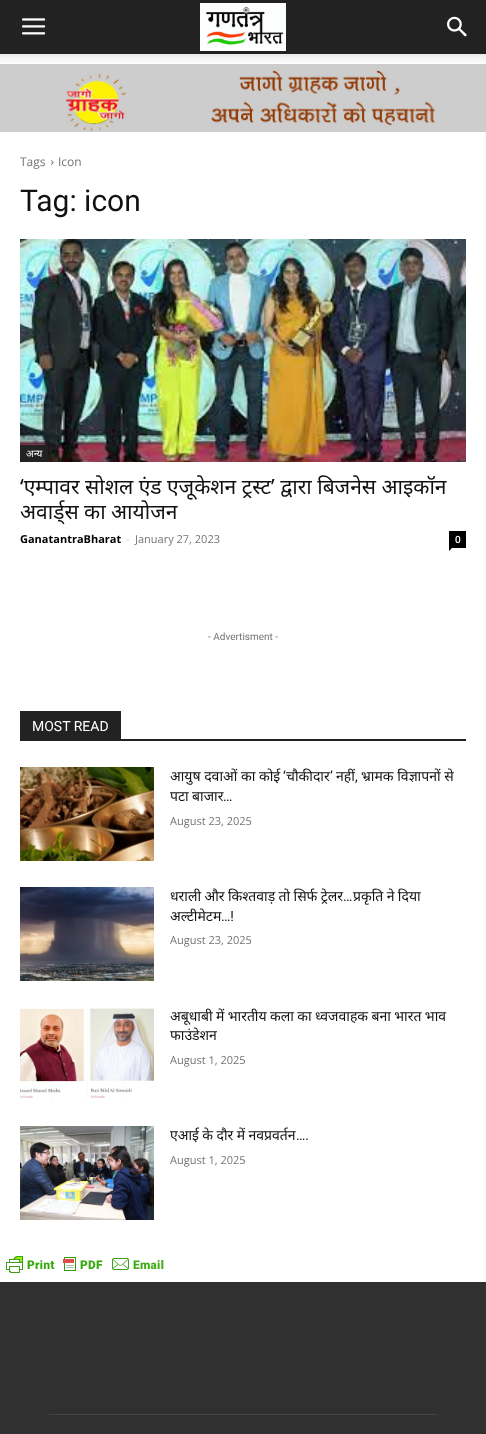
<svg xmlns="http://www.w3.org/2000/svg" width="486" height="1434">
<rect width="100%" height="100%" fill="#fff"/>
<rect width="486" height="54" fill="#222"/>
<image x="22" y="18" width="24" height="17" href="media/1.png"/>
<image x="200" y="3" width="86" height="48" href="media/2.png"/>
<image x="447" y="16" width="20" height="21" href="media/3.png"/>
<image x="0" y="54" width="486" height="9" href="media/4.png"/>
<image x="0" y="64" width="486" height="68" href="media/5.png"/>
<text x="20" y="166" style="font-family:Open Sans;font-size:12px;fill:#747474">Tags</text>
<image x="51" y="160" width="3" height="5" href="media/6.png"/>
<text x="58" y="166" style="font-family:Open Sans;font-size:12px;fill:#747474">Icon</text>
<text x="20" y="211" style="font-family:Roboto;font-size:30px;fill:#111">Tag: icon</text>
<image x="20" y="239" width="446" height="223" href="media/7.png"/>
<rect x="20" y="445" width="28" height="17" fill="#222"/>
<text x="26" y="457" style="font-family:Noto Sans;font-size:10px;fill:#fff">अन्य</text>
<text x="20" y="494" style="font-family:Noto Sans;font-size:21px;fill:#111">‘एम्पावर सोशल एंड एजूकेशन ट्रस्ट’ द्वारा बिजनेस आइकॉन</text>
<text x="20" y="519" style="font-family:Noto Sans;font-size:21px;fill:#111">अवार्ड्स का आयोजन</text>
<text x="20" y="543" style="font-family:Open Sans;font-size:11px;font-weight:bold;fill:#000">GanatantraBharat</text>
<text x="126" y="543" style="font-family:Open Sans;font-size:11px;fill:#ccc">-</text>
<text x="135" y="543" style="font-family:Open Sans;font-size:11px;fill:#747474">January 27, 2023</text>
<rect x="449" y="531" width="17" height="17" fill="#000"/>
<text x="455" y="543" style="font-family:Open Sans;font-size:10px;font-weight:600;fill:#fff">0</text>
<path d="M449 548h3l-3 3z" fill="#000"/>
<text x="208" y="640" style="font-family:Roboto;font-size:10px;fill:#747474">- Advertisment -</text>
<rect x="20" y="739" width="446" height="2" fill="#222"/>
<rect x="20" y="711" width="101" height="28" fill="#222"/>
<text x="32" y="731" style="font-family:Roboto;font-size:14px;fill:#fff">MOST READ</text>
<image x="20" y="767" width="134" height="94" href="media/8.png"/>
<text x="170" y="781" style="font-family:Noto Sans;font-size:14px;fill:#111">आयुष दवाओं का कोई</text>
<text x="283" y="781" style="font-family:Roboto;font-size:14px;fill:#111">‘</text>
<text x="286" y="781" style="font-family:Noto Sans;font-size:14px;fill:#111">चौकीदार</text>
<text x="336" y="781" style="font-family:Noto Sans;font-size:14px;fill:#111">नहीं</text>
<text x="361" y="781" style="font-family:Noto Sans;font-size:14px;fill:#111">भ्रामक विज्ञापनों से</text>
<text x="330" y="781" style="font-family:Roboto;font-size:14px;fill:#111">’</text>
<text x="355" y="781" style="font-family:Roboto;font-size:14px;fill:#111">,</text>
<text x="170" y="801" word-spacing="-0.25" style="font-family:Noto Sans;font-size:14px;fill:#111">पटा बाजार</text>
<text x="223" y="801" style="font-family:Roboto;font-size:14px;fill:#111">…</text>
<text x="170" y="825" style="font-family:Open Sans;font-size:11px;fill:#747474">August 23, 2025</text>
<image x="20" y="887" width="134" height="94" href="media/9.png"/>
<text x="170" y="901" word-spacing="-0.25" style="font-family:Noto Sans;font-size:14px;fill:#111">धराली और किश्तवाड़ तो सिर्फ ट्रेलर</text>
<text x="343" y="901" style="font-family:Roboto;font-size:14px;fill:#111">…</text>
<text x="353" y="901" word-spacing="-0.25" style="font-family:Noto Sans;font-size:14px;fill:#111">प्रकृति ने दिया</text>
<text x="170" y="921" style="font-family:Noto Sans;font-size:14px;fill:#111">अल्टीमेटम</text>
<text x="221" y="921" style="font-family:Roboto;font-size:14px;fill:#111">…!</text>
<text x="170" y="944" style="font-family:Open Sans;font-size:11px;fill:#747474">August 23, 2025</text>
<image x="20" y="1007" width="134" height="93" href="media/10.png"/>
<text x="170" y="1021" word-spacing="-0.25" style="font-family:Noto Sans;font-size:14px;fill:#111">अबूधाबी में भारतीय कला का ध्वजवाहक बना भारत भाव</text>
<text x="170" y="1040" style="font-family:Noto Sans;font-size:14px;fill:#111">फाउंडेशन</text>
<text x="170" y="1064" style="font-family:Open Sans;font-size:11px;fill:#747474">August 1, 2025</text>
<image x="20" y="1126" width="134" height="94" href="media/11.png"/>
<text x="170" y="1140" word-spacing="-0.25" style="font-family:Noto Sans;font-size:14px;fill:#111">एआई के दौर में नवप्रवर्तन</text>
<text x="296" y="1140" style="font-family:Roboto;font-size:14px;fill:#111">….</text>
<text x="170" y="1164" style="font-family:Open Sans;font-size:11px;fill:#747474">August 1, 2025</text>
<image x="6" y="1256" width="158" height="17" href="media/12.png"/>
<rect y="1282" width="486" height="152" fill="#303030"/>
<rect x="49" y="1414" width="388" height="1" fill="#454545"/>
</svg>
